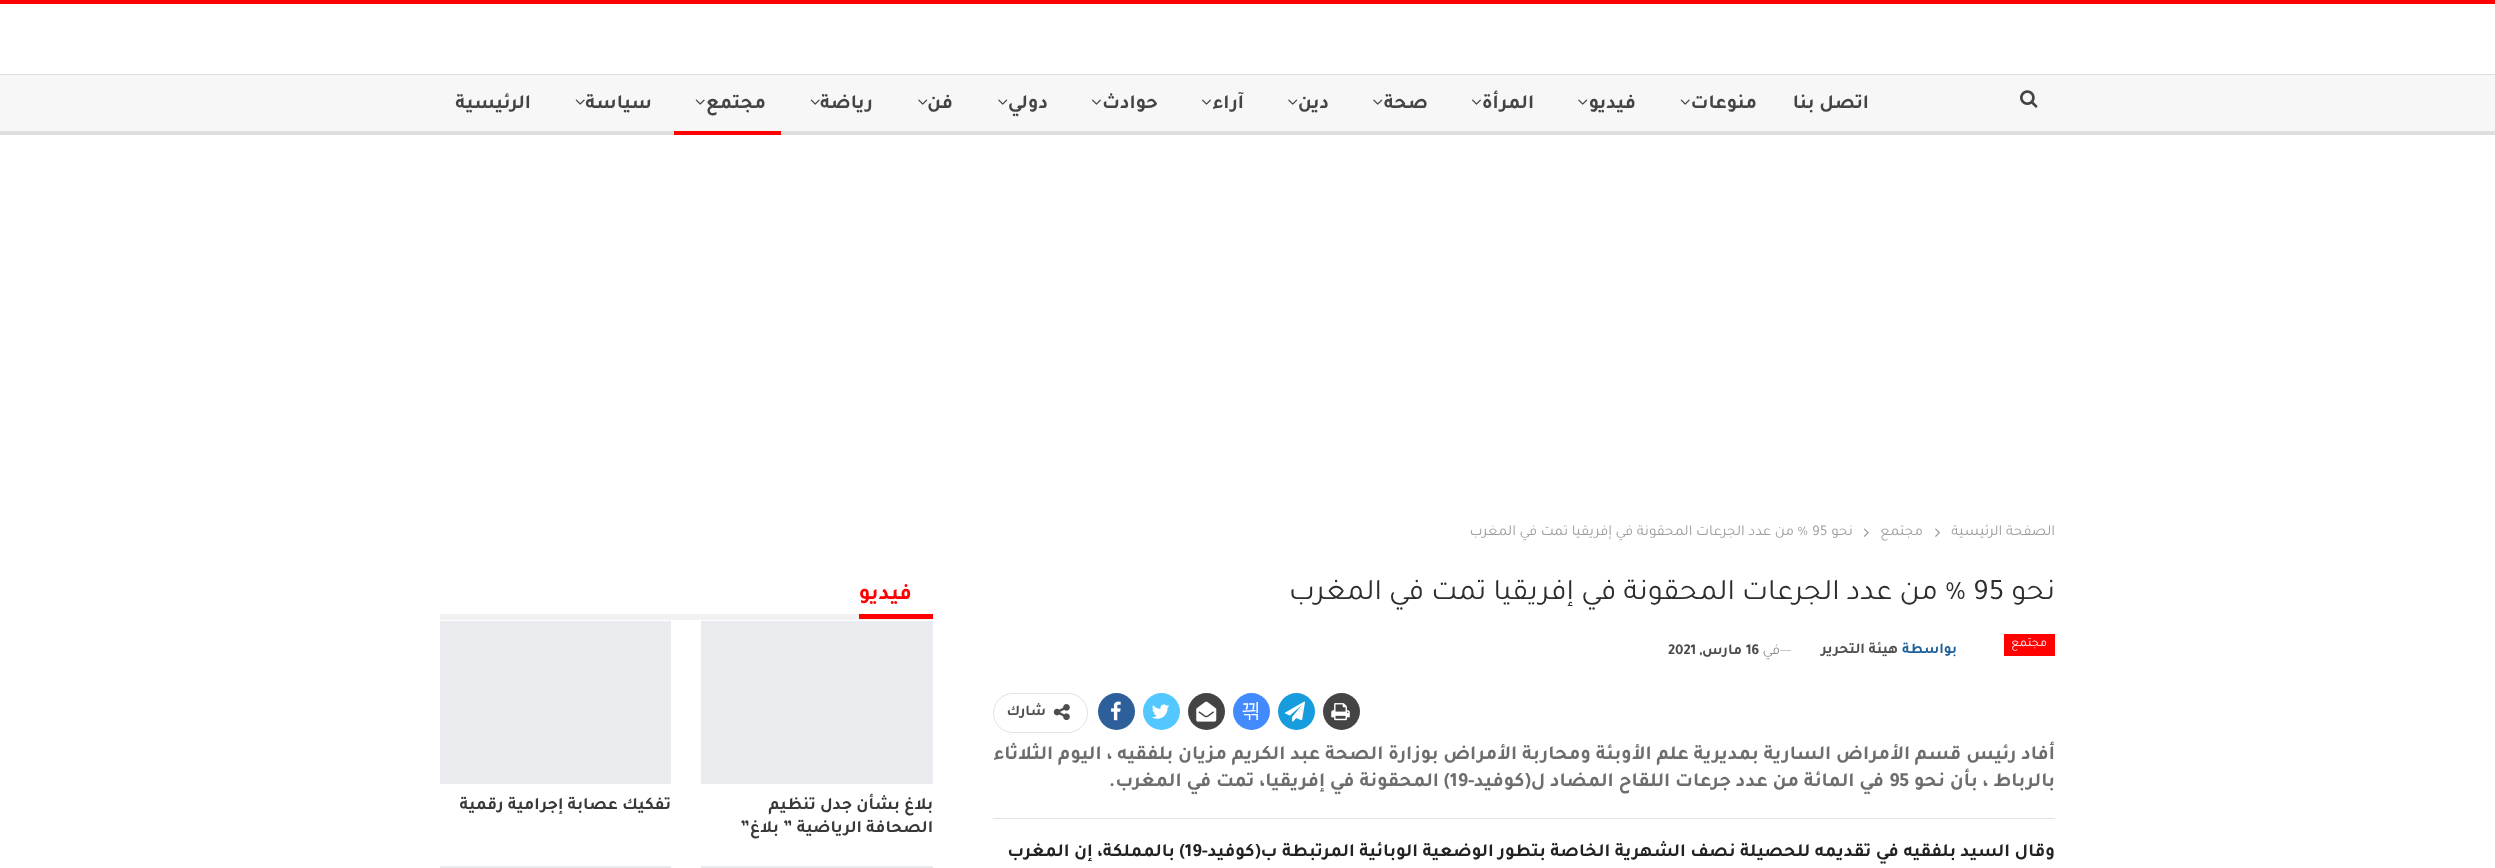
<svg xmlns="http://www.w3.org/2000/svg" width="2495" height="868">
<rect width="100%" height="100%" fill="#fff"/>
<rect width="2495" height="4" fill="#fe0100"/>
<rect y="74" width="2495" height="1" fill="#dedede"/>
<rect y="131" width="2495" height="4" fill="#dedede"/>
<rect y="75" width="2495" height="56" fill="#f7f7f7"/>
<image x="2020" y="90" width="18" height="18" href="media/1.png"/>
<text x="1869" y="108" style="font-family:Tajawal;font-size:20px;font-weight:bold;direction:rtl;fill:#444">اتصل بنا</text>
<text x="1757" y="108" style="font-family:Tajawal;font-size:20px;font-weight:bold;direction:rtl;fill:#444">منوعات</text>
<image x="1680" y="99" width="10" height="6" href="media/2.png"/>
<text x="1636" y="108" style="font-family:Tajawal;font-size:20px;font-weight:bold;direction:rtl;fill:#444">فيديو</text>
<image x="1578" y="99" width="10" height="6" href="media/3.png"/>
<text x="1534" y="108" style="font-family:Tajawal;font-size:20px;font-weight:bold;direction:rtl;fill:#444">المرأة</text>
<image x="1472" y="99" width="9" height="6" href="media/4.png"/>
<text x="1428" y="108" style="font-family:Tajawal;font-size:20px;font-weight:bold;direction:rtl;fill:#444">صحة</text>
<image x="1373" y="99" width="10" height="6" href="media/3.png"/>
<text x="1329" y="108" style="font-family:Tajawal;font-size:20px;font-weight:bold;direction:rtl;fill:#444">دين</text>
<image x="1288" y="99" width="10" height="6" href="media/3.png"/>
<text x="1244" y="108" style="font-family:Tajawal;font-size:20px;font-weight:bold;direction:rtl;fill:#444">آراء</text>
<image x="1202" y="99" width="9" height="6" href="media/4.png"/>
<text x="1158" y="108" style="font-family:Tajawal;font-size:20px;font-weight:bold;direction:rtl;fill:#444">حوادث</text>
<image x="1092" y="99" width="9" height="6" href="media/4.png"/>
<text x="1048" y="108" style="font-family:Tajawal;font-size:20px;font-weight:bold;direction:rtl;fill:#444">دولي</text>
<image x="998" y="99" width="10" height="6" href="media/3.png"/>
<text x="953" y="108" style="font-family:Tajawal;font-size:20px;font-weight:bold;direction:rtl;fill:#444">فن</text>
<image x="918" y="99" width="10" height="6" href="media/3.png"/>
<text x="873" y="108" style="font-family:Tajawal;font-size:20px;font-weight:bold;direction:rtl;fill:#444">رياضة</text>
<image x="810" y="99" width="10" height="6" href="media/2.png"/>
<text x="766" y="108" style="font-family:Tajawal;font-size:20px;font-weight:bold;direction:rtl;fill:#444">مجتمع</text>
<image x="695" y="99" width="10" height="6" href="media/2.png"/>
<rect x="674" y="131" width="107" height="4" fill="#fe0100"/>
<text x="652" y="108" style="font-family:Tajawal;font-size:20px;font-weight:bold;direction:rtl;fill:#444">سياسة</text>
<image x="575" y="99" width="10" height="6" href="media/2.png"/>
<text x="531" y="108" style="font-family:Tajawal;font-size:20px;font-weight:bold;direction:rtl;fill:#444">الرئيسية</text>
<text x="2055" y="535" style="font-family:Tajawal;font-size:15px;direction:rtl;fill:#9e9e9e">الصفحة الرئيسية</text>
<image x="1935" y="528" width="5" height="9" href="media/5.png"/>
<text x="1923" y="535" style="font-family:Tajawal;font-size:15px;direction:rtl;fill:#9e9e9e">مجتمع</text>
<image x="1863" y="528" width="6" height="9" href="media/6.png"/>
<text x="1853" y="535" style="font-family:Tajawal;font-size:15px;direction:rtl;fill:#9e9e9e">نحو</text>
<text x="1812" y="535" style="font-family:Tajawal;font-size:15px;fill:#9e9e9e">95</text>
<text x="1808" y="535" style="font-family:Tajawal;font-size:15px;direction:rtl;fill:#9e9e9e">% من عدد الجرعات المحقونة في إفريقيا تمت في المغرب</text>
<text x="2055" y="599" style="font-family:Tajawal;font-size:30px;direction:rtl;fill:#2d2d2d">نحو</text>
<text x="1973" y="599" style="font-family:Tajawal;font-size:30px;fill:#2d2d2d">95</text>
<text x="1966" y="599" style="font-family:Tajawal;font-size:30px;direction:rtl;fill:#2d2d2d">% من عدد الجرعات المحقونة في إفريقيا تمت في المغرب</text>
<rect x="2004" y="634" width="51" height="22" fill="#fe0100"/>
<text x="2047" y="646" style="font-family:Tajawal;font-size:12.5px;direction:rtl;fill:#fff">مجتمع</text>
<text x="1957" y="653" style="font-family:Tajawal;font-size:15px;font-weight:bold;direction:rtl;fill:#1d5f9b">بواسطة</text>
<text x="1898" y="653" style="font-family:Tajawal;font-size:15px;font-weight:bold;direction:rtl;fill:#4d4d4d">هيئة التحرير</text>
<rect x="1780" y="650" width="11" height="1" fill="#c4c4c4"/>
<text x="1780" y="654" style="font-family:Tajawal;font-size:15px;direction:rtl;fill:#8f8f8f">في</text>
<text x="1746" y="654" style="font-family:Tajawal;font-size:15px;font-weight:bold;fill:#4d4d4d">16</text>
<text x="1742" y="654" style="font-family:Tajawal;font-size:15px;font-weight:bold;direction:rtl;fill:#4d4d4d">مارس,</text>
<text x="1668" y="654" style="font-family:Tajawal;font-size:15px;font-weight:bold;fill:#4d4d4d">2021</text>
<circle cx="1341.5" cy="711.5" r="18.5" fill="#444"/>
<image x="1331" y="703" width="19" height="18" href="media/7.png"/>
<circle cx="1296.5" cy="711.5" r="18.5" fill="#179cde"/>
<image x="1285" y="701" width="20" height="21" href="media/8.png"/>
<circle cx="1251.5" cy="711.5" r="18.5" fill="#448aff"/>
<text x="1241" y="717" style="font-family:WenQuanYi Zen Hei;font-size:20px;font-weight:500;fill:#fff">끢</text>
<circle cx="1206.5" cy="711.5" r="18.5" fill="#444"/>
<image x="1196" y="701" width="21" height="21" href="media/9.png"/>
<circle cx="1161.5" cy="711.5" r="18.5" fill="#53c7ff"/>
<image x="1152" y="704" width="18" height="15" href="media/10.png"/>
<circle cx="1116.5" cy="711.5" r="18.5" fill="#2d5f9a"/>
<image x="1111" y="701" width="10" height="20" href="media/11.png"/>
<rect x="993.5" y="693.5" width="94" height="39" rx="19.5" fill="none" stroke="#e2e2e2"/>
<image x="1053" y="704" width="17" height="17" href="media/12.png"/>
<text x="1046" y="715" style="font-family:Tajawal;font-size:15px;font-weight:bold;direction:rtl;fill:#4d4d4d">شارك</text>
<rect x="993" y="818" width="1062" height="1" fill="#e2e2e2"/>
<text x="2055" y="759" style="font-family:Tajawal;font-size:20px;font-weight:bold;direction:rtl;fill:#6d6d6d">أفاد رئيس قسم الأمراض السارية بمديرية علم الأوبئة ومحاربة الأمراض بوزارة الصحة عبد الكريم مزيان بلفقيه ، اليوم الثلاثاء</text>
<text x="2055" y="786" style="font-family:Tajawal;font-size:20px;font-weight:bold;direction:rtl;fill:#6d6d6d">بالرباط ، بأن نحو</text>
<text x="1889" y="786" style="font-family:Tajawal;font-size:20px;font-weight:bold;fill:#6d6d6d">95</text>
<text x="1884" y="786" style="font-family:Tajawal;font-size:20px;font-weight:bold;direction:rtl;fill:#6d6d6d">في المائة من عدد جرعات اللقاح المضاد ل(كوفيد-</text>
<text x="1450" y="786" style="font-family:Tajawal;font-size:20px;font-weight:bold;fill:#6d6d6d">19</text>
<text x="1450" y="786" style="font-family:Tajawal;font-size:20px;font-weight:bold;direction:rtl;fill:#6d6d6d">) المحقونة في إفريقيا، تمت في المغرب.</text>
<text x="2055" y="856" style="font-family:Tajawal;font-size:18.75px;font-weight:bold;direction:rtl;fill:#222">وقال السيد بلفقيه في تقديمه للحصيلة نصف الشهرية الخاصة بتطور الوضعية الوبائية المرتبطة ب(كوفيد-</text>
<text x="1185" y="856" style="font-family:Tajawal;font-size:18.75px;font-weight:bold;fill:#222">19</text>
<text x="1185" y="856" style="font-family:Tajawal;font-size:18.75px;font-weight:bold;direction:rtl;fill:#222">) بالمملكة، إن المغرب</text>
<rect x="440" y="614" width="493" height="6" fill="#f2f2f2"/>
<rect x="859" y="614" width="74" height="5" fill="#fe0100"/>
<text x="912" y="599" style="font-family:Tajawal;font-size:22.5px;font-weight:bold;direction:rtl;fill:#fe0100">فيديو</text>
<rect x="701" y="621" width="232" height="163" fill="#e9ebee"/>
<text x="933" y="809" style="font-family:Tajawal;font-size:17.5px;font-weight:bold;direction:rtl;fill:#383838">بلاغ بشأن جدل تنظيم</text>
<text x="933" y="832" style="font-family:Tajawal;font-size:17.5px;font-weight:bold;direction:rtl;fill:#383838">الصحافة الرياضية ” بلاغ”</text>
<rect x="440" y="621" width="231" height="163" fill="#e9ebee"/>
<text x="671" y="809" style="font-family:Tajawal;font-size:17.5px;font-weight:bold;direction:rtl;fill:#383838">تفكيك عصابة إجرامية رقمية</text>
<rect x="701" y="866" width="232" height="2" fill="#e9ebee"/>
<rect x="440" y="866" width="231" height="2" fill="#e9ebee"/>
</svg>
